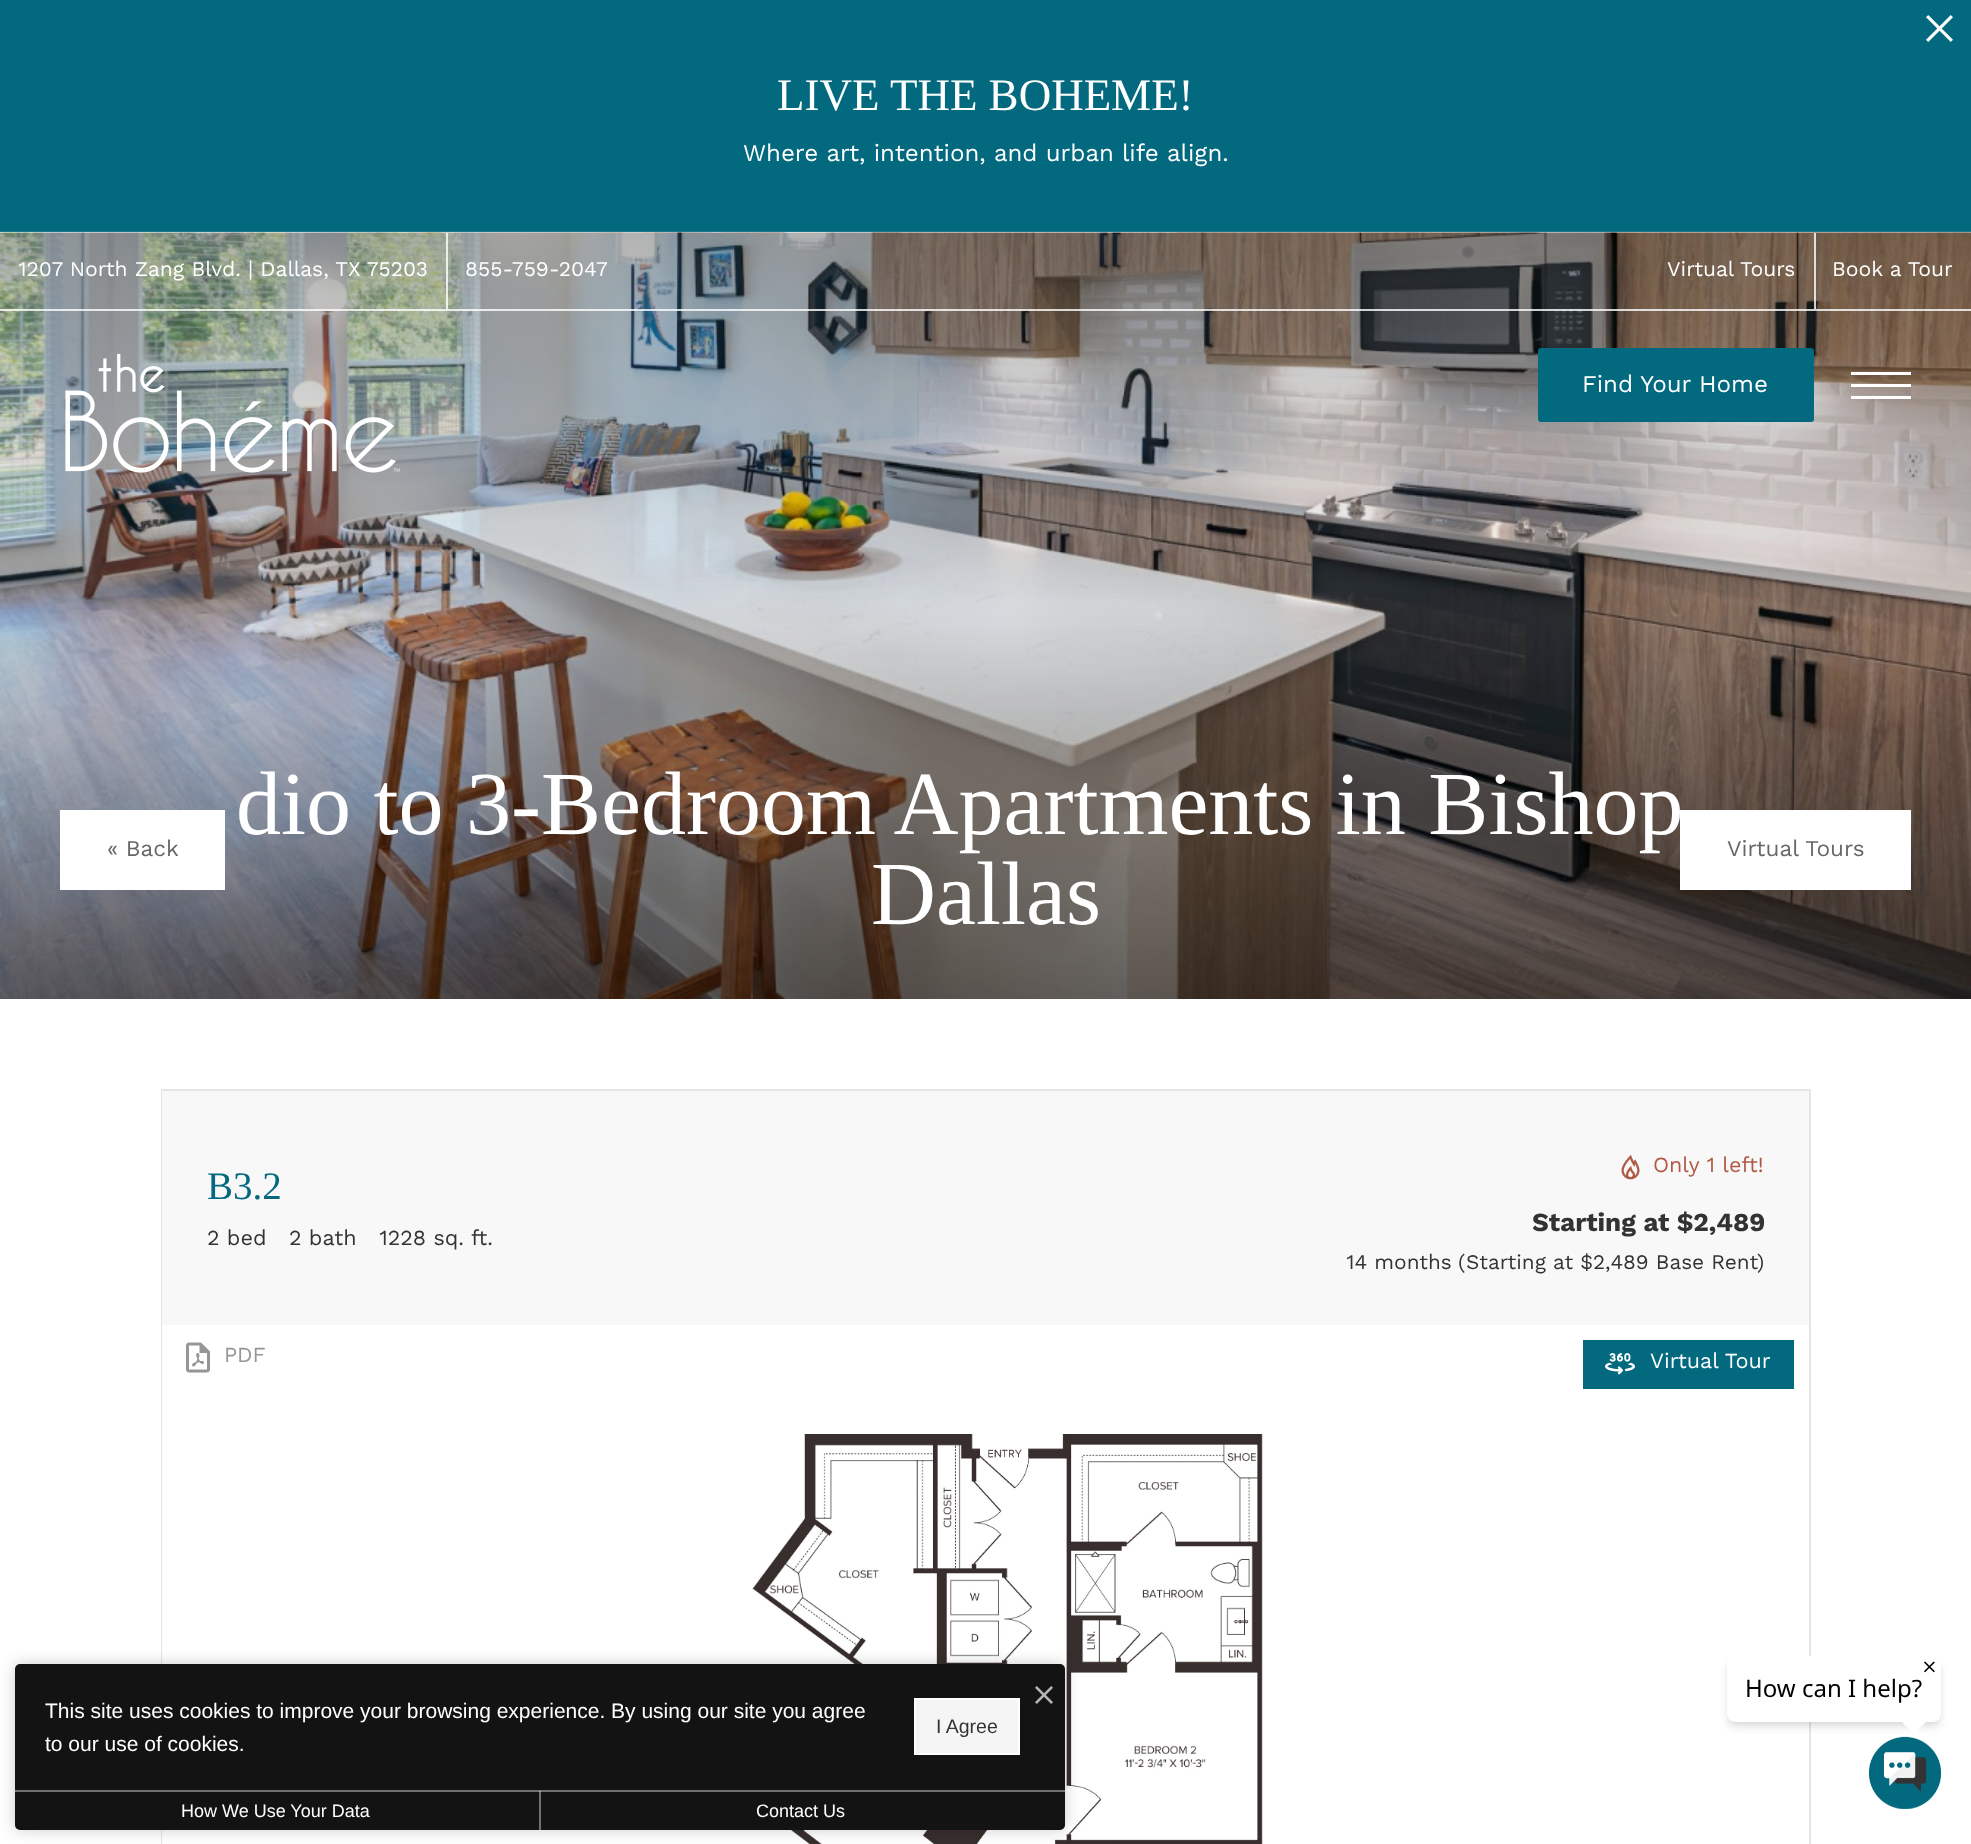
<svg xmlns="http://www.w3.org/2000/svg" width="1971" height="1844">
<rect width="100%" height="100%" fill="#fff"/>
<rect width="1971" height="233" fill="#00000033" filter="blur(15px)"/>
<rect width="1971" height="231" fill="#02697f"/>
<rect y="231" width="1971" height="1" fill="#1b788c"/>
<image x="1926" y="15" width="27" height="27" href="media/1.png"/>
<text x="777" y="110" style="font-family:Liberation Serif;font-size:45px;fill:#fff">LIVE THE BOHEME!</text>
<text x="743" y="161" style="font-family:Work Sans;font-size:24px;fill:#fff">Where art, intention, and urban life align.</text>
<image x="0" y="232" width="1971" height="1" href="media/3.png"/>
<image x="0" y="232" width="1971" height="767" href="media/4.png"/>
<rect y="309" width="1971" height="2" fill="#ffffffcc"/>
<rect x="446" y="233" width="2" height="76" fill="#ffffffcc"/>
<text x="18" y="276" style="font-family:Work Sans;font-size:21px;fill:#fff">1207 North Zang Blvd. | Dallas, TX 75203</text>
<text x="465" y="276" style="font-family:Work Sans;font-size:21px;fill:#fff">855-759-2047</text>
<rect x="1814" y="233" width="2" height="76" fill="#ffffffcc"/>
<text x="1667" y="276" style="font-family:Work Sans;font-size:21px;fill:#fff">Virtual Tours</text>
<text x="1832" y="276" style="font-family:Work Sans;font-size:21px;fill:#fff">Book a Tour</text>
<image x="65" y="353" width="335" height="120" href="media/2.png"/>
<rect x="1538" y="348" width="276" height="74" rx="3" fill="#02697f"/>
<text x="1582" y="392" style="font-family:Work Sans;font-size:24px;fill:#fff">Find Your Home</text>
<rect x="1851" y="372" width="60" height="3" fill="#fff"/>
<rect x="1851" y="384" width="60" height="3" fill="#fff"/>
<rect x="1851" y="396" width="60" height="3" fill="#fff"/>
<text x="236" y="834" style="font-family:Liberation Serif;font-size:90px;fill:#fff">dio to 3-Bedroom Apartments in Bishop</text>
<text x="871" y="924" style="font-family:Liberation Serif;font-size:90px;fill:#fff">Dallas</text>
<rect x="60" y="810" width="165" height="80" fill="#fff"/>
<text x="107" y="856" style="font-family:Work Sans;font-size:22.5px;fill:#666">« Back</text>
<rect x="1680" y="810" width="231" height="80" fill="#fff"/>
<text x="1727" y="856" style="font-family:Work Sans;font-size:22.5px;fill:#666">Virtual Tours</text>
<rect x="162" y="1090" width="1648" height="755" fill="none" stroke="#e5e5e5" stroke-width="2"/>
<rect x="162" y="1091" width="1647" height="234" fill="#f8f8f8"/>
<text x="207" y="1199" style="font-family:Liberation Serif;font-size:39px;fill:#02697f">B3.2</text>
<text x="207" y="1245" style="font-family:Work Sans;font-size:21.5px;fill:#333">2 bed</text>
<text x="289" y="1245" style="font-family:Work Sans;font-size:21.5px;fill:#333">2 bath</text>
<text x="379" y="1245" style="font-family:Work Sans;font-size:21.5px;fill:#333">1228 sq. ft.</text>
<image x="1621" y="1154" width="19" height="26" href="media/5.png"/>
<text x="1653" y="1172" style="font-family:Work Sans;font-size:21.5px;fill:#b15947">Only 1 left!</text>
<text x="1532" y="1231" style="font-family:Work Sans;font-size:26px;font-weight:bold;fill:#333">Starting at $2,489</text>
<text x="1346" y="1269" style="font-family:Work Sans;font-size:20.75px;fill:#333">14 months</text>
<text x="1458" y="1269" style="font-family:Work Sans;font-size:20.75px;fill:#333">(</text>
<text x="1466" y="1269" style="font-family:Work Sans;font-size:20.75px;fill:#333">Starting at $2,489 Base Rent</text>
<text x="1757" y="1269" style="font-family:Work Sans;font-size:20.75px;fill:#333">)</text>
<rect x="162" y="1325" width="1" height="519" fill="#fff"/>
<image x="186" y="1342" width="24" height="31" href="media/6.png"/>
<text x="224" y="1362" style="font-family:Work Sans;font-size:21.5px;fill:#969696">PDF</text>
<image x="752" y="1434" width="511" height="410" href="media/7.png"/>
<rect x="1583" y="1340" width="211" height="49" fill="#02697f"/>
<image x="1605" y="1353" width="30" height="22" href="media/8.png"/>
<text x="1650" y="1368" style="font-family:Work Sans;font-size:21.5px;fill:#fff">Virtual Tour</text>
<rect x="15" y="1664" width="1050" height="166" rx="5" fill="#00000033" filter="blur(7.5px)"/>
<rect x="15" y="1664" width="1050" height="166" rx="5" fill="#131313"/>
<rect x="539" y="1791" width="2" height="39" fill="#717171"/>
<image x="1035" y="1686" width="18" height="18" href="media/9.png"/>
<text x="45" y="1718" style="font-family:Liberation Sans;font-size:21px;fill:#fff">This site uses cookies to improve your browsing experience. By using our site you agree</text>
<text x="45" y="1751" style="font-family:Liberation Sans;font-size:21px;fill:#fff">to our use of cookies.</text>
<rect x="915" y="1699" width="104" height="55" fill="#f5f5f5" stroke="#fff" stroke-width="2"/>
<text x="936" y="1733" style="font-family:Liberation Sans;font-size:19.5px;fill:#333">I Agree</text>
<rect x="15" y="1790" width="1050" height="2" fill="#717171"/>
<rect x="539" y="1791" width="2" height="1" fill="#aaa"/>
<text x="181" y="1817" style="font-family:Liberation Sans;font-size:18px;fill:#fff">How We Use Your Data</text>
<text x="756" y="1817" style="font-family:Liberation Sans;font-size:18px;fill:#fff">Contact Us</text>
<rect x="1730" y="1662" width="208" height="60" rx="5" fill="#0000001a" filter="blur(3px)"/>
<image x="1869" y="1736" width="72" height="73" href="media/11.png"/>
<rect x="1728" y="1664" width="212" height="63" rx="6" fill="#0000001a" filter="blur(4.5px)"/>
<rect x="1727" y="1656" width="214" height="66" rx="8" fill="#fff"/>
<image x="1924" y="1661" width="11" height="12" href="media/10.png"/>
<text x="1745" y="1697" style="font-family:Noto Sans;font-size:24px;fill:#000">How can I help?</text>
<path d="M1902 1722h24l-12 12z" fill="#fff"/>
</svg>
